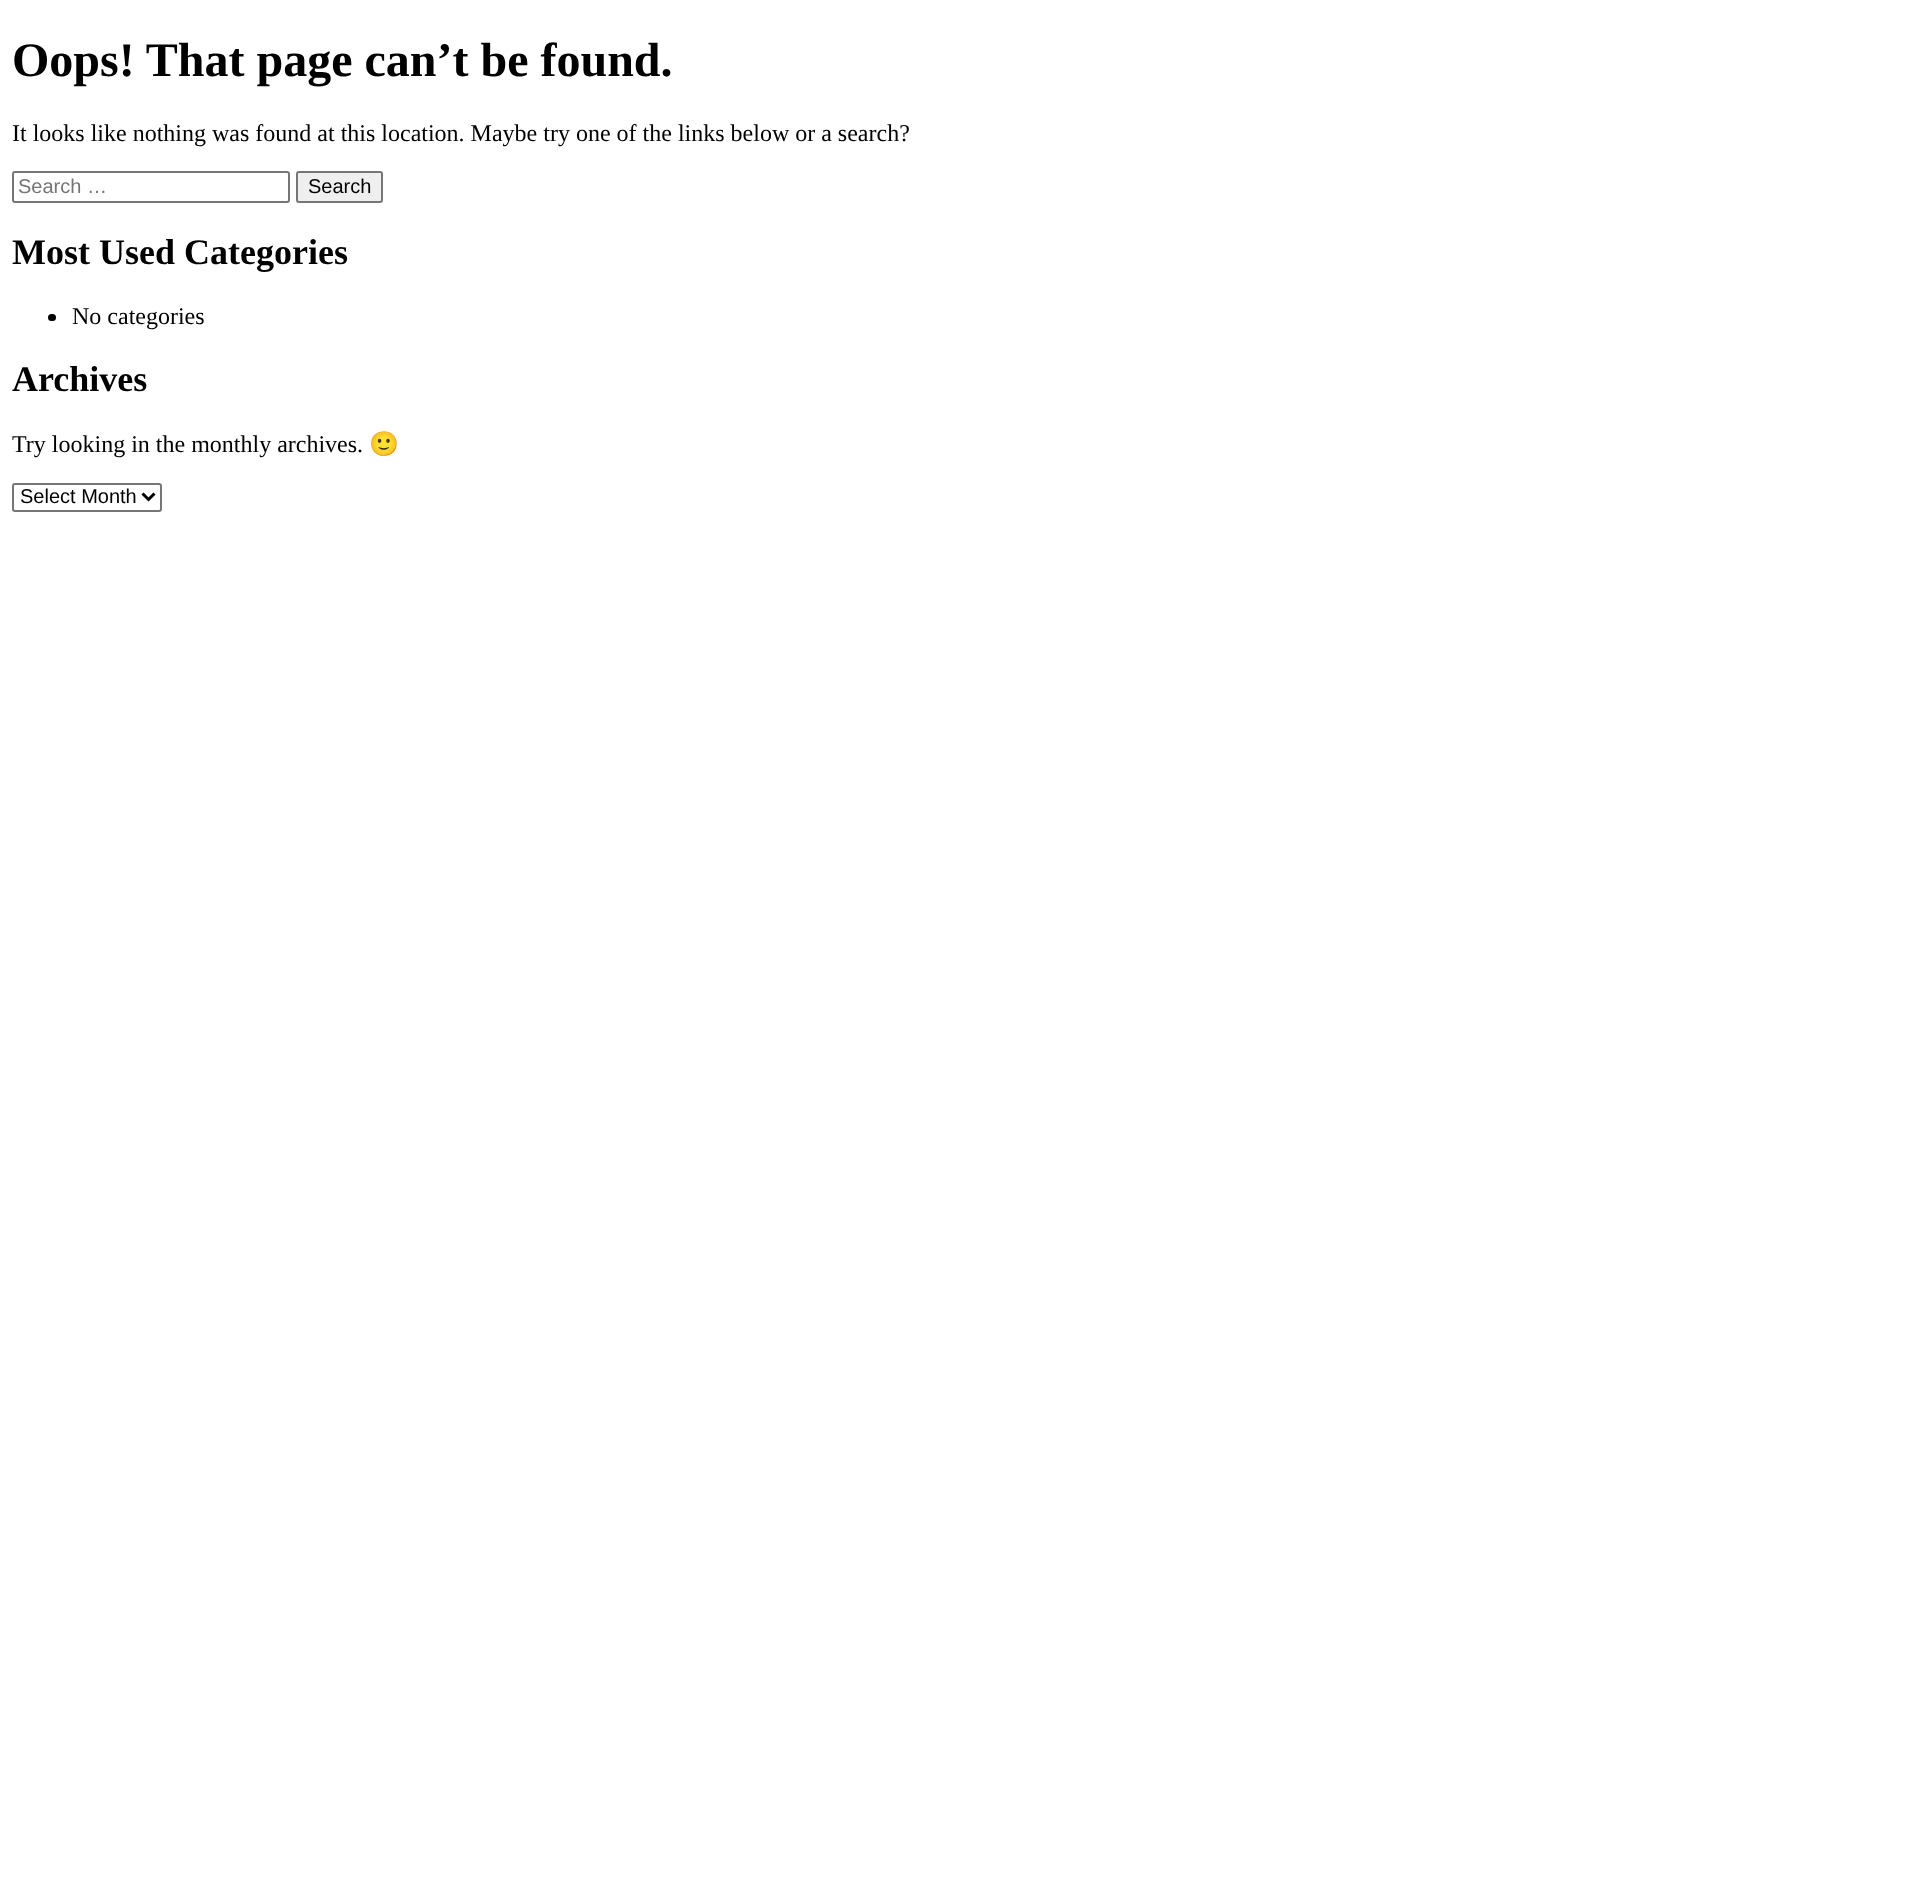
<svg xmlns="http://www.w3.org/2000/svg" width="1905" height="1891">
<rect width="100%" height="100%" fill="#fff"/>
<text x="12" y="76" style="font-family:Liberation Serif;font-size:48px;font-weight:bold;fill:#000">Oops! That page can’t be found.</text>
<text x="12" y="141" style="font-family:Liberation Serif;font-size:24px;fill:#000">It looks like nothing was found at this location. Maybe try one of the links below or a search?</text>
<rect x="13" y="172" width="276" height="30" rx="2" fill="none" stroke="#767676" stroke-width="2"/>
<text x="18" y="193" style="font-family:Liberation Sans;font-size:20px;fill:#757575">Search …</text>
<rect x="297" y="172" width="85" height="30" rx="2" fill="#efefef" stroke="#767676" stroke-width="2"/>
<text x="308" y="193" style="font-family:Liberation Sans;font-size:20px;fill:#000">Search</text>
<text x="12" y="264" style="font-family:Liberation Serif;font-size:36px;font-weight:bold;fill:#000">Most Used Categories</text>
<rect x="48" y="314" width="8" height="7" rx="3.5" fill="#000"/>
<text x="72" y="324" style="font-family:Liberation Serif;font-size:24px;fill:#000">No categories</text>
<text x="12" y="391" style="font-family:Liberation Serif;font-size:36px;font-weight:bold;fill:#000">Archives</text>
<text x="12" y="452" style="font-family:Liberation Serif;font-size:24px;fill:#000">Try looking in the monthly archives.</text>
<text x="369" y="452" style="font-family:Noto Color Emoji;font-size:24px;fill:#000">🙂</text>
<rect x="13" y="484" width="148" height="27" rx="2" fill="none" stroke="#767676" stroke-width="2"/>
<path d="M142.5 493.5l6 6l6-6" fill="none" stroke="#000" stroke-width="3"/>
<text x="20" y="503" style="font-family:Liberation Sans;font-size:20px;fill:#000">Select Month</text>
</svg>
